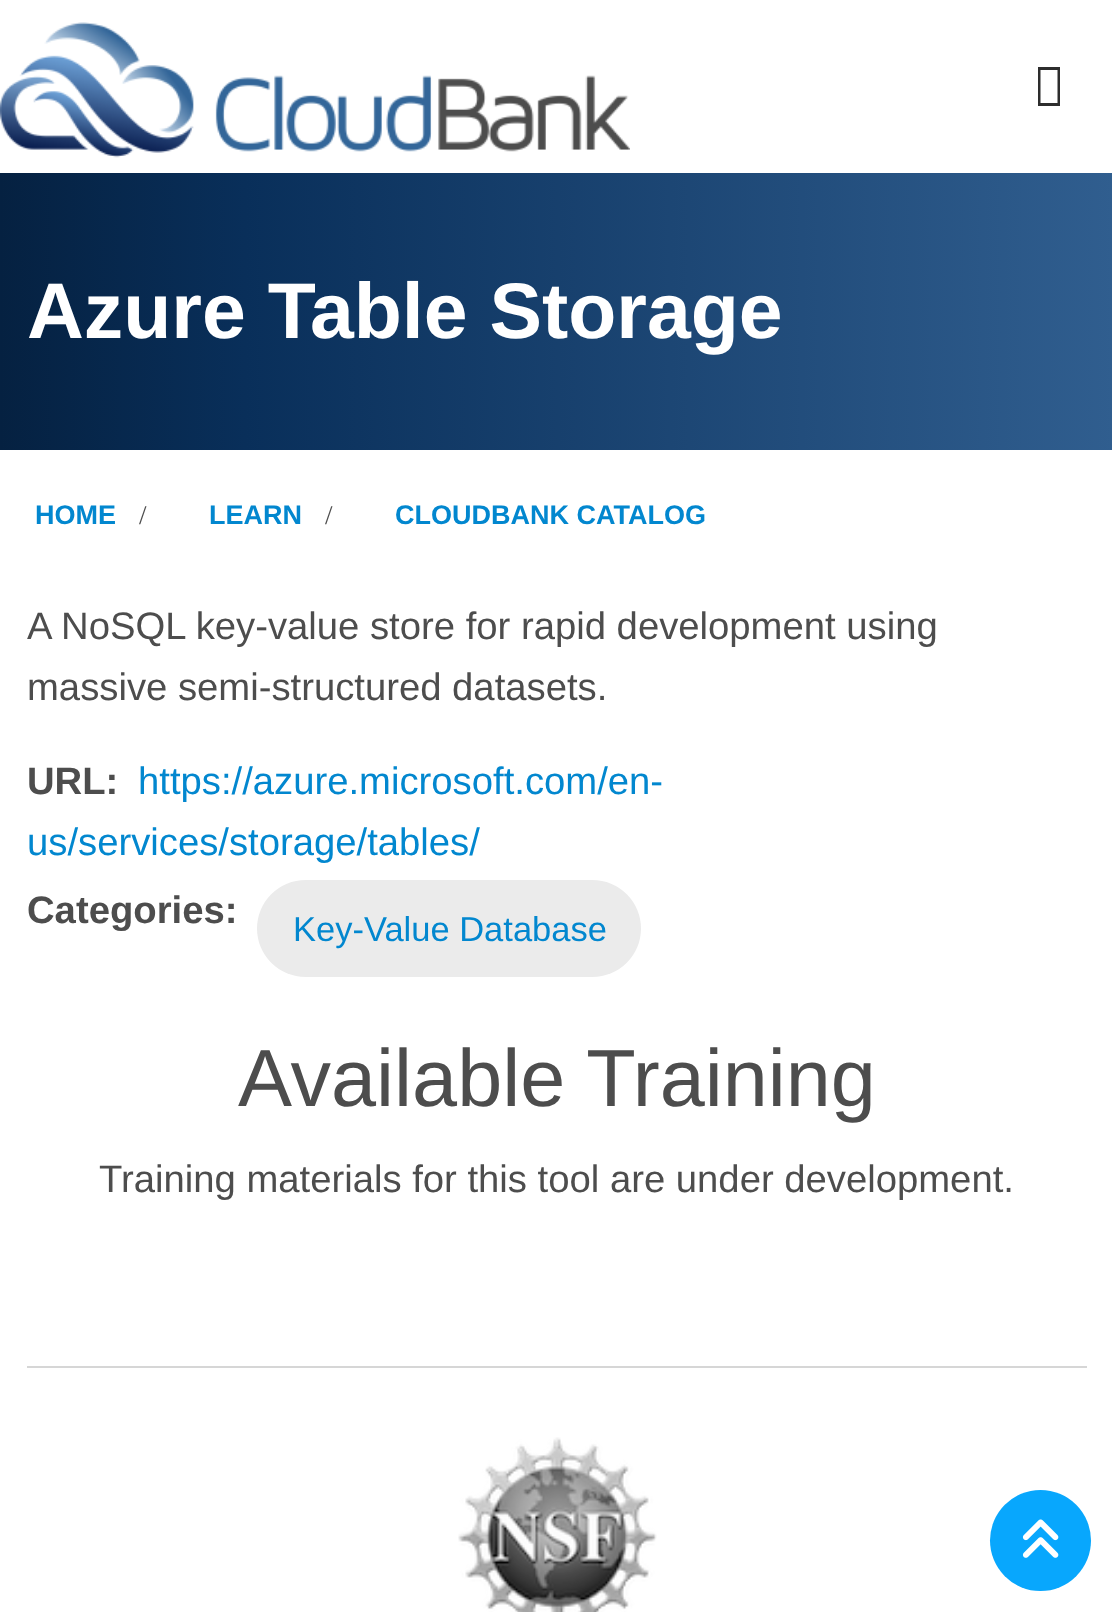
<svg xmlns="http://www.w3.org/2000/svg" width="1112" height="1612">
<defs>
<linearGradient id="g1" gradientUnits="userSpaceOnUse" x1="0" y1="312" x2="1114" y2="312"><stop offset="0" stop-color="#052141"/><stop offset="0.22" stop-color="#092f5a"/><stop offset="1" stop-color="#305e8f"/></linearGradient>
</defs>
<rect width="100%" height="100%" fill="#fff"/>
<image x="0" y="22" width="630" height="136" href="media/1.png"/>
<path d="M1038 106v-39h22v39zm2.5-3h17v-33h-17z" fill="#2d2d2d"/>
<rect y="173" width="1112" height="277" fill="url(#g1)"/>
<text x="27" y="338" style="font-family:Liberation Sans;font-size:78.75px;font-weight:bold;fill:#fff">Azure Table Storage</text>
<text x="35" y="524" style="font-family:Liberation Sans;font-size:27px;font-weight:bold;fill:#0287cf">HOME</text>
<text x="139" y="524" style="font-family:Liberation Serif;font-size:27px;fill:#4d4d4d">/</text>
<text x="209" y="524" style="font-family:Liberation Sans;font-size:27px;font-weight:bold;fill:#0287cf">LEARN</text>
<text x="325" y="524" style="font-family:Liberation Serif;font-size:27px;fill:#4d4d4d">/</text>
<text x="395" y="524" style="font-family:Liberation Sans;font-size:27px;font-weight:bold;fill:#0287cf">CLOUDBANK CATALOG</text>
<text x="27" y="639" style="font-family:Liberation Sans;font-size:38.25px;fill:#4d4d4d">A NoSQL key-value store for rapid development using</text>
<text x="27" y="700" style="font-family:Liberation Sans;font-size:38.25px;fill:#4d4d4d">massive semi-structured datasets.</text>
<text x="138" y="794" style="font-family:Liberation Sans;font-size:38.25px;fill:#0287cf">https://azure.microsoft.com/en-</text>
<text x="27" y="855" style="font-family:Liberation Sans;font-size:38.25px;fill:#0287cf">us/services/storage/tables/</text>
<text x="27" y="794" style="font-family:Liberation Sans;font-size:38.25px;font-weight:bold;fill:#4d4d4d">URL:</text>
<text x="27" y="923" style="font-family:Liberation Sans;font-size:38.25px;font-weight:bold;fill:#4d4d4d">Categories:</text>
<rect x="257" y="880" width="384" height="97" rx="48.5" fill="#ebebeb"/>
<text x="293" y="941" style="font-family:Liberation Sans;font-size:34.5px;fill:#0287cf">Key-Value Database</text>
<text x="238" y="1106" style="font-family:Liberation Sans;font-size:81px;fill:#4d4d4d">Available Training</text>
<text x="99" y="1192" style="font-family:Liberation Sans;font-size:38.25px;fill:#4d4d4d">Training materials for this tool are under development.</text>
<rect x="27" y="1366" width="1060" height="2" fill="#d6d6d6"/>
<image x="458" y="1437" width="199" height="175" href="media/2.png"/>
<circle cx="1040.5" cy="1540.5" r="50.5" fill="#08a7fd"/>
<image x="1022" y="1519" width="37" height="39" href="media/3.png"/>
</svg>
